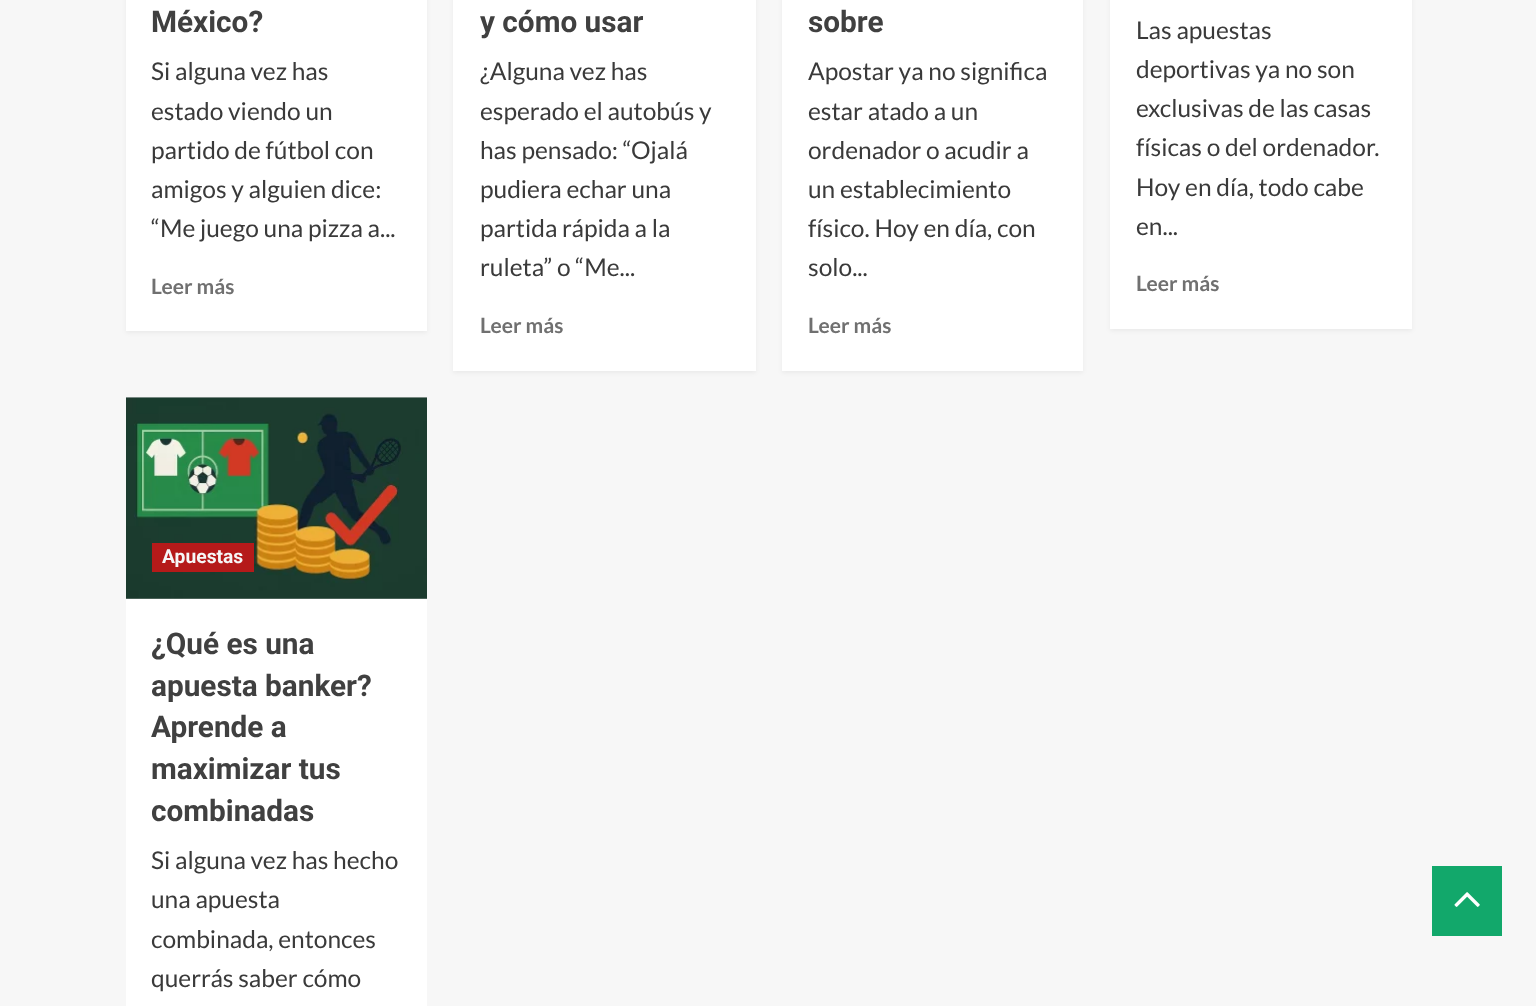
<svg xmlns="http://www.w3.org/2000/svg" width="1536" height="1006">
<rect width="100%" height="100%" fill="#f7f7f7"/>
<rect x="126" y="-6" width="301" height="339" fill="#0000000d" filter="blur(2px)"/>
<rect x="126" width="301" height="331" fill="#fff"/>
<text x="151" y="32" style="font-family:Roboto;font-size:29.75px;font-weight:bold;fill:#404040">México?</text>
<text x="151" y="80" style="font-family:Lato;font-size:24.5px;fill:#3a3a3a">Si alguna vez has</text>
<text x="151" y="120" style="font-family:Lato;font-size:24.5px;fill:#3a3a3a">estado viendo un</text>
<text x="151" y="159" style="font-family:Lato;font-size:24.5px;fill:#3a3a3a">partido de fútbol con</text>
<text x="151" y="198" style="font-family:Lato;font-size:24.5px;fill:#3a3a3a">amigos y alguien dice:</text>
<text x="151" y="237" style="font-family:Lato;font-size:24.5px;fill:#3a3a3a">“Me juego una pizza a...</text>
<text x="151" y="294" style="font-family:Lato;font-size:21px;font-weight:bold;fill:#707070">Leer más</text>
<rect x="453" y="-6" width="303" height="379" fill="#0000000d" filter="blur(2px)"/>
<rect x="453" width="303" height="371" fill="#fff"/>
<text x="480" y="32" style="font-family:Roboto;font-size:29.75px;font-weight:bold;fill:#404040">y cómo usar</text>
<text x="480" y="80" style="font-family:Lato;font-size:24.5px;fill:#3a3a3a">¿Alguna vez has</text>
<text x="480" y="120" style="font-family:Lato;font-size:24.5px;fill:#3a3a3a">esperado el autobús y</text>
<text x="480" y="159" style="font-family:Lato;font-size:24.5px;fill:#3a3a3a">has pensado: “Ojalá</text>
<text x="480" y="198" style="font-family:Lato;font-size:24.5px;fill:#3a3a3a">pudiera echar una</text>
<text x="480" y="237" style="font-family:Lato;font-size:24.5px;fill:#3a3a3a">partida rápida a la</text>
<text x="480" y="276" style="font-family:Lato;font-size:24.5px;fill:#3a3a3a">ruleta” o “Me...</text>
<text x="480" y="333" style="font-family:Lato;font-size:21px;font-weight:bold;fill:#707070">Leer más</text>
<rect x="782" y="-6" width="301" height="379" fill="#0000000d" filter="blur(2px)"/>
<rect x="782" width="301" height="371" fill="#fff"/>
<text x="808" y="32" style="font-family:Roboto;font-size:29.75px;font-weight:bold;fill:#404040">sobre</text>
<text x="808" y="80" style="font-family:Lato;font-size:24.5px;fill:#3a3a3a">Apostar ya no significa</text>
<text x="808" y="120" style="font-family:Lato;font-size:24.5px;fill:#3a3a3a">estar atado a un</text>
<text x="808" y="159" style="font-family:Lato;font-size:24.5px;fill:#3a3a3a">ordenador o acudir a</text>
<text x="808" y="198" style="font-family:Lato;font-size:24.5px;fill:#3a3a3a">un establecimiento</text>
<text x="808" y="237" style="font-family:Lato;font-size:24.5px;fill:#3a3a3a">físico. Hoy en día, con</text>
<text x="808" y="276" style="font-family:Lato;font-size:24.5px;fill:#3a3a3a">solo...</text>
<text x="808" y="333" style="font-family:Lato;font-size:21px;font-weight:bold;fill:#707070">Leer más</text>
<rect x="1110" y="-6" width="302" height="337" fill="#0000000d" filter="blur(2px)"/>
<rect x="1110" width="302" height="329" fill="#fff"/>
<text x="1136" y="39" style="font-family:Lato;font-size:24.5px;fill:#3a3a3a">Las apuestas</text>
<text x="1136" y="78" style="font-family:Lato;font-size:24.5px;fill:#3a3a3a">deportivas ya no son</text>
<text x="1136" y="117" style="font-family:Lato;font-size:24.5px;fill:#3a3a3a">exclusivas de las casas</text>
<text x="1136" y="156" style="font-family:Lato;font-size:24.5px;fill:#3a3a3a">físicas o del ordenador.</text>
<text x="1136" y="196" style="font-family:Lato;font-size:24.5px;fill:#3a3a3a">Hoy en día, todo cabe</text>
<text x="1136" y="235" style="font-family:Lato;font-size:24.5px;fill:#3a3a3a">en...</text>
<text x="1136" y="291" style="font-family:Lato;font-size:21px;font-weight:bold;fill:#707070">Leer más</text>
<rect x="126" y="599" width="301" height="407" fill="#fff"/>
<rect x="126" y="397" width="301" height="202" fill="#d8d8d8"/>
<image x="126" y="397" width="301" height="202" href="media/1.png"/>
<rect x="152" y="543" width="102" height="29" fill="#bb1919f5"/>
<text x="162" y="563" style="font-family:Roboto;font-size:19.25px;font-weight:bold;fill:#f6f7f7">Apuestas</text>
<text x="151" y="654" style="font-family:Roboto;font-size:29.75px;font-weight:bold;fill:#404040">¿Qué es una</text>
<text x="151" y="696" style="font-family:Roboto;font-size:29.75px;font-weight:bold;fill:#404040">apuesta banker?</text>
<text x="151" y="737" style="font-family:Roboto;font-size:29.75px;font-weight:bold;fill:#404040">Aprende a</text>
<text x="151" y="779" style="font-family:Roboto;font-size:29.75px;font-weight:bold;fill:#404040">maximizar tus</text>
<text x="151" y="821" style="font-family:Roboto;font-size:29.75px;font-weight:bold;fill:#404040">combinadas</text>
<text x="151" y="869" style="font-family:Lato;font-size:24.5px;fill:#3a3a3a">Si alguna vez has hecho</text>
<text x="151" y="908" style="font-family:Lato;font-size:24.5px;fill:#3a3a3a">una apuesta</text>
<text x="151" y="948" style="font-family:Lato;font-size:24.5px;fill:#3a3a3a">combinada, entonces</text>
<text x="151" y="987" style="font-family:Lato;font-size:24.5px;fill:#3a3a3a">querrás saber cómo</text>
<rect x="1432" y="866" width="70" height="70" fill="#12a86b"/>
<image x="1454" y="892" width="26" height="15" href="media/2.png"/>
</svg>
